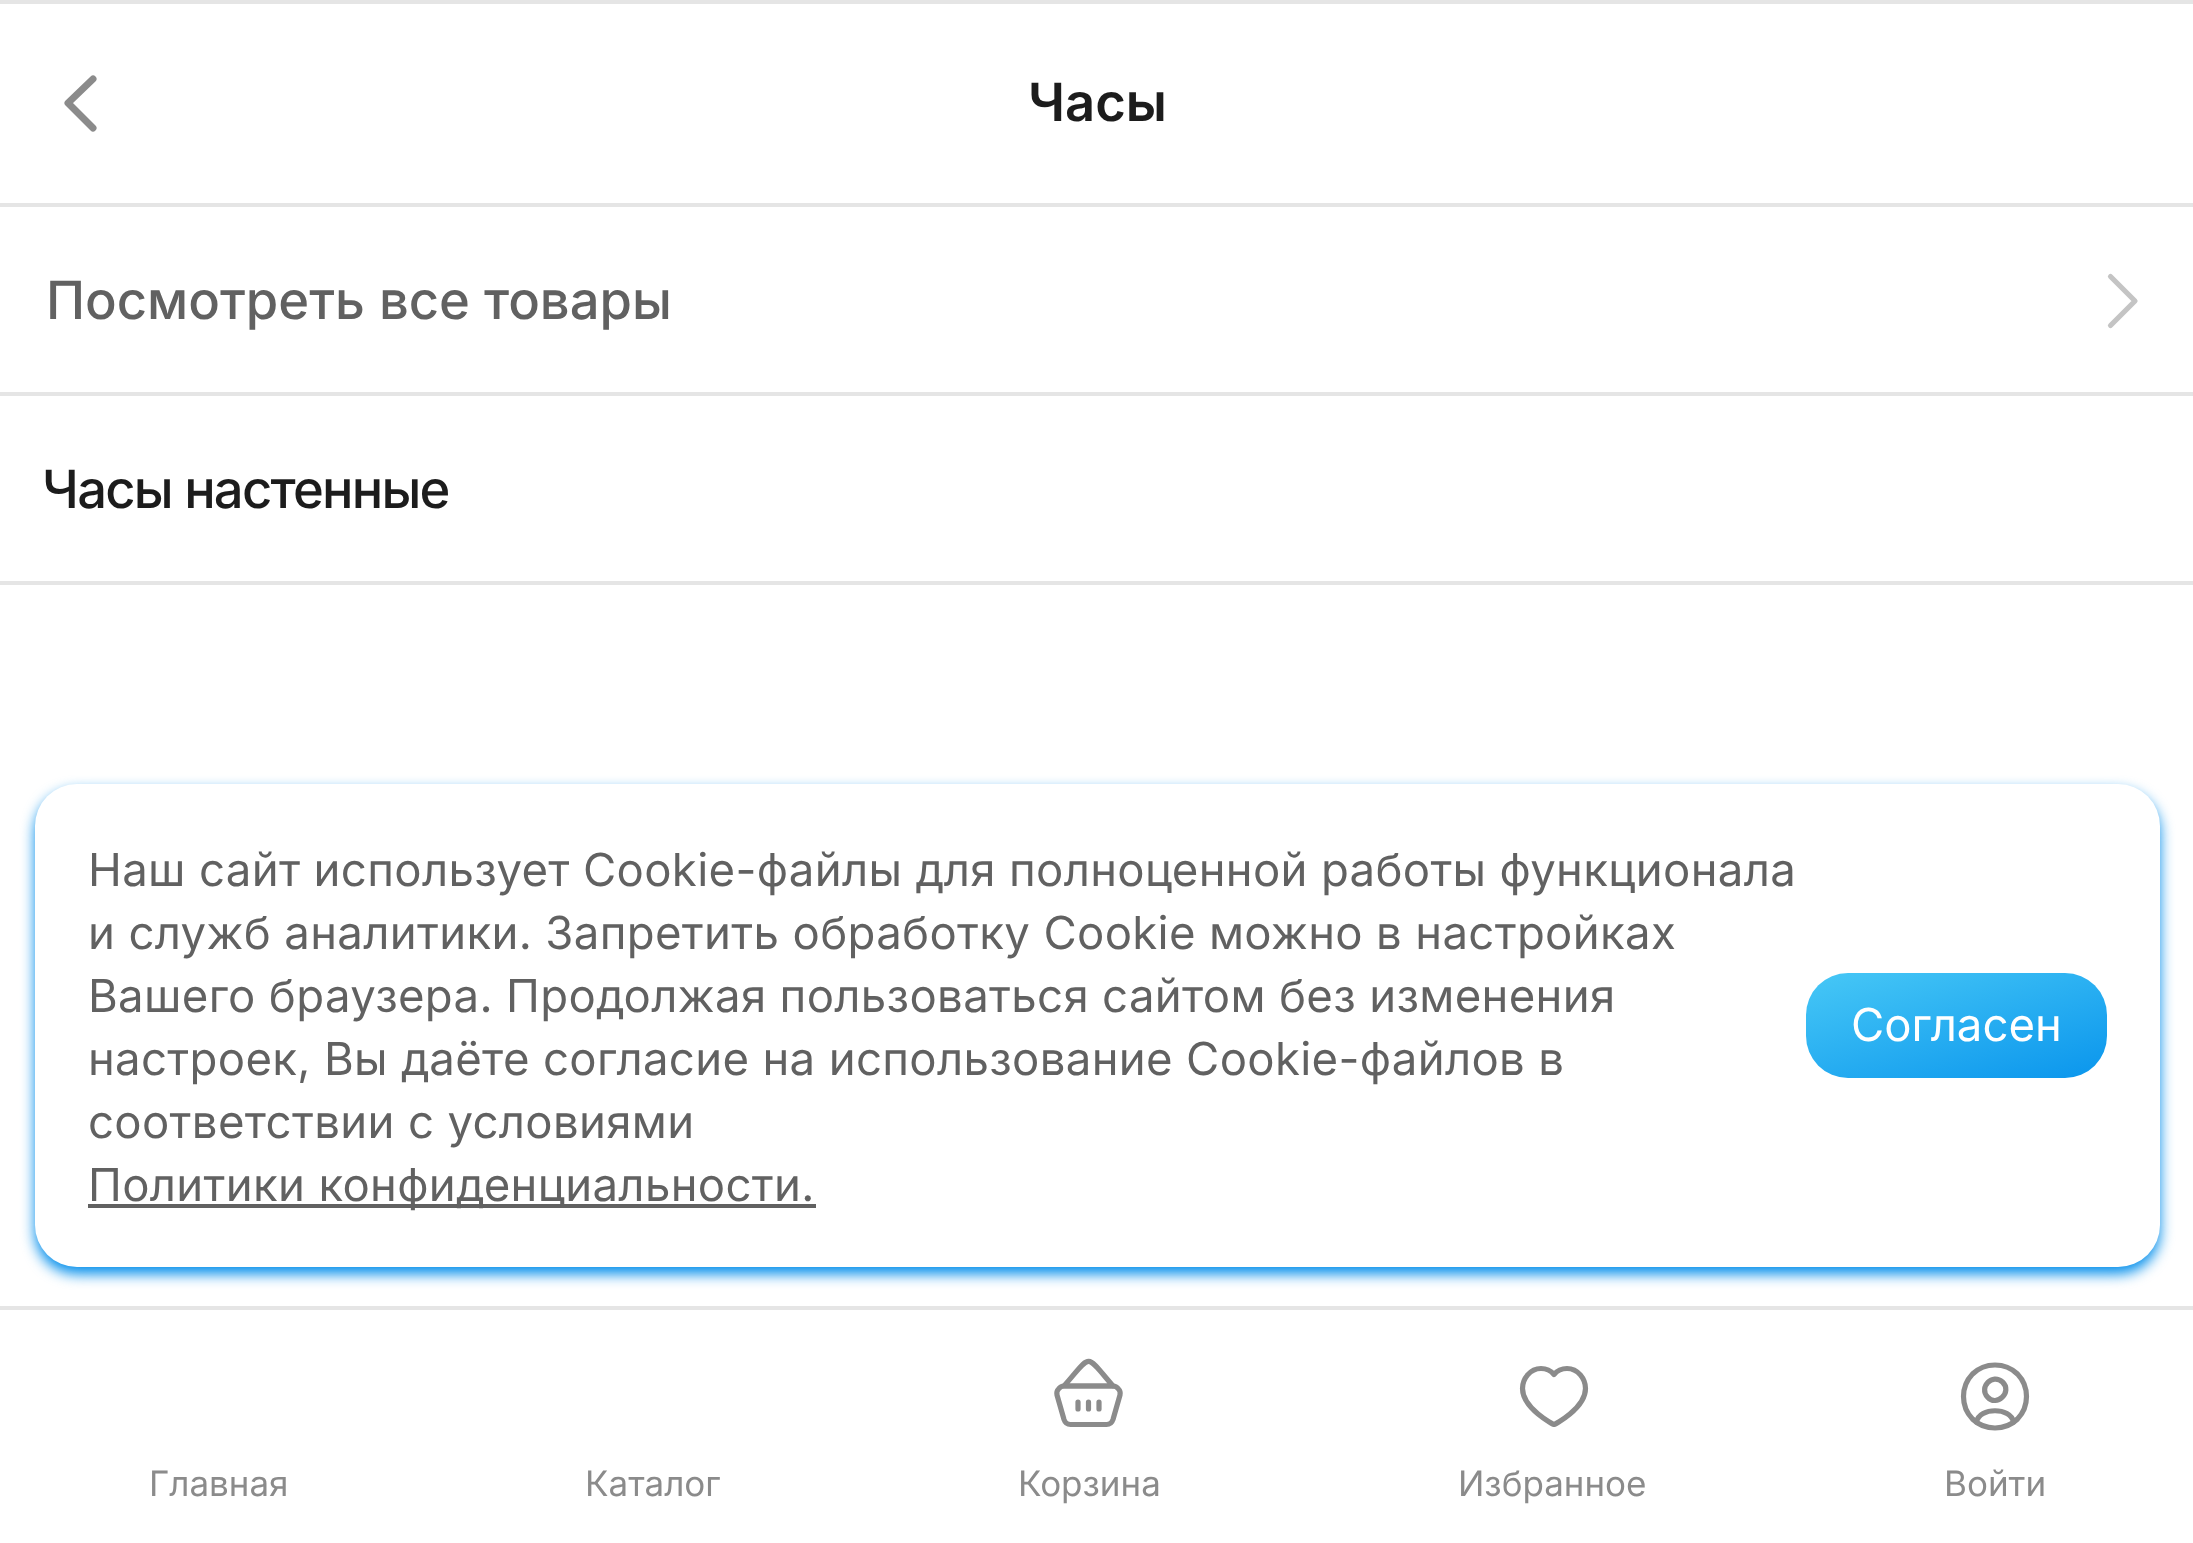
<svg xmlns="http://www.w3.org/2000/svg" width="2193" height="1543">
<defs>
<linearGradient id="g1" gradientUnits="userSpaceOnUse" x1="1991" y1="1144" x2="1882" y2="770"><stop offset="0" stop-color="#008deb"/><stop offset="1" stop-color="#80f7ff"/><stop offset="1" stop-color="#00b4eb"/></linearGradient>
</defs>
<rect width="100%" height="100%" fill="#fff"/>
<rect width="2193" height="4" fill="#e5e5e5"/>
<rect y="203" width="2193" height="4" fill="#e5e5e5"/>
<path d="M93 79l-25 24l25 25" fill="none" stroke="#8b8b8b" stroke-width="7" stroke-linecap="round" stroke-linejoin="round"/>
<text x="1028" y="121" style="font-family:Inter;font-size:52.5px;font-weight:600;fill:#1c1c1c">Часы</text>
<text x="46" y="319" style="font-family:Inter;font-size:52.5px;font-weight:500;fill:#616161">Посмотреть все товары</text>
<path d="M2110.5 276.5l24.5 24.5l-24.5 24.5" fill="none" stroke="#c4c4c4" stroke-width="5.2" stroke-linecap="round" stroke-linejoin="round"/>
<rect y="392" width="2193" height="4" fill="#e5e5e5"/>
<rect y="581" width="2193" height="4" fill="#e5e5e5"/>
<text x="42" y="508" style="font-family:Inter;font-size:52.5px;font-weight:500;letter-spacing:-1.75px;fill:#1c1c1c">Часы настенные</text>
<rect x="35" y="791" width="2125" height="483" rx="42" fill="#008deb" filter="blur(7px)"/>
<rect x="35" y="784" width="2125" height="483" rx="42" fill="#fff"/>
<text x="88" y="886" style="font-family:Inter;font-size:45.5px;letter-spacing:0.35px;fill:#616161">Наш сайт использует Сookie-файлы для полноценной работы функционала</text>
<text x="88" y="949" style="font-family:Inter;font-size:45.5px;letter-spacing:0.35px;fill:#616161">и служб аналитики. Запретить обработку Cookie можно в настройках</text>
<text x="88" y="1012" style="font-family:Inter;font-size:45.5px;letter-spacing:0.35px;fill:#616161">Вашего браузера. Продолжая пользоваться сайтом без изменения</text>
<text x="88" y="1075" style="font-family:Inter;font-size:45.5px;letter-spacing:0.35px;fill:#616161">настроек, Вы даёте согласие на использование Cookie-файлов в</text>
<text x="88" y="1138" style="font-family:Inter;font-size:45.5px;letter-spacing:0.35px;fill:#616161">соответствии с условиями</text>
<rect x="88" y="1204" width="728" height="4" fill="#616161"/>
<text x="88" y="1201" style="font-family:Inter;font-size:45.5px;letter-spacing:0.35px;fill:#616161">Политики конфиденциальности.</text>
<rect x="1806" y="973" width="301" height="105" rx="42" fill="url(#g1)"/>
<text x="1851" y="1041" style="font-family:Inter;font-size:45.5px;fill:#fff">Согласен</text>
<rect y="1306" width="2193" height="4" fill="#e5e5e5"/>
<text x="149" y="1496" style="font-family:Inter;font-size:35px;fill:#8b8b8b">Главная</text>
<text x="585" y="1496" style="font-family:Inter;font-size:35px;fill:#8b8b8b">Каталог</text>
<path d="M1106.5 1424.5h-36c-3 0-5.5-2-6.5-5l-7-24.5c-.5-2.5 0-4.5 1.5-6c1.5-2 3.5-3 5.5-3h49c2 0 4 1 5.5 3c1.5 1.5 2 3.5 1.5 6l-7 24.5c-1 3-3.5 5-6.5 5zm-28.5-22.5v7m21-7v7m-10.5-7v7" fill="none" stroke="#8b8b8b" stroke-width="5.2" stroke-linecap="round" stroke-linejoin="round"/>
<path d="M1113 1386c-29-33.5-20.5-32-49 0h49" fill="none" stroke="#8b8b8b" stroke-width="5.2" stroke-linecap="round" stroke-linejoin="round"/>
<text x="1018" y="1496" style="font-family:Inter;font-size:35px;fill:#8b8b8b">Корзина</text>
<path d="M1567 1368.5c11 0 18.5 10.5 18.5 20c0 20-31 36-31.5 36c-.5 0-31.5-16-31.5-36c0-9.5 7.5-20 18.5-20c6.5 0 10.5 3 13 6c2.5-3 6.5-6 13-6z" fill="none" stroke="#8b8b8b" stroke-width="5.2" stroke-linecap="round" stroke-linejoin="round"/>
<text x="1458" y="1496" style="font-family:Inter;font-size:35px;fill:#8b8b8b">Избранное</text>
<path d="M2017.5 1374c12 12.5 12 32.5 0 45c-12.5 12-32.5 12-45 0c-12-12.5-12-32.5 0-45c12.5-12 32.5-12 45 0" fill="none" stroke="#8b8b8b" stroke-width="5.2" stroke-linecap="round" stroke-linejoin="round"/>
<path d="M2013.5 1422c-3-15-34-15-37 0m26-40c10.5 10-6 25.5-15 15c-9-10 5-24 15-15z" fill="none" stroke="#8b8b8b" stroke-width="5.2" stroke-linecap="round" stroke-linejoin="round"/>
<text x="1944" y="1496" style="font-family:Inter;font-size:35px;fill:#8b8b8b">Войти</text>
</svg>
